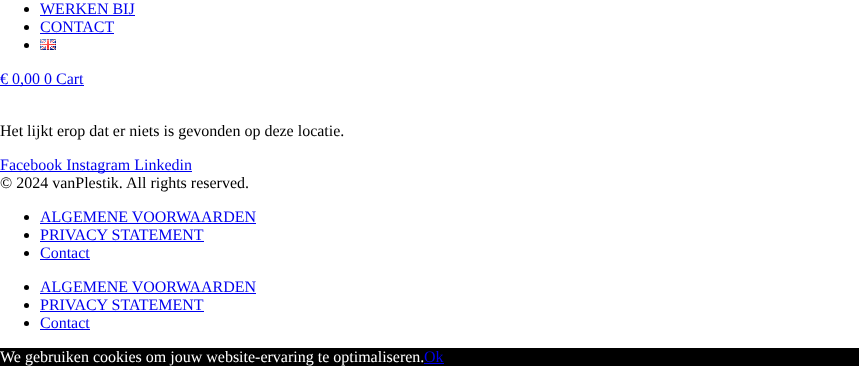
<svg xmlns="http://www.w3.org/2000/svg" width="859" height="366">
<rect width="100%" height="100%" fill="#fff"/>
<circle cx="26.5" cy="9.5" r="2.5" fill="#000"/>
<text x="40" y="14" style="font-family:Liberation Serif;font-size:16px;fill:#00e">WERKEN BIJ</text>
<rect x="40" y="15" width="95" height="1" fill="#00e"/>
<circle cx="26.5" cy="27.5" r="2.5" fill="#000"/>
<text x="40" y="32" style="font-family:Liberation Serif;font-size:16px;fill:#00e">CONTACT</text>
<rect x="40" y="33" width="74" height="1" fill="#00e"/>
<circle cx="26.5" cy="45.5" r="2.5" fill="#000"/>
<image x="40" y="39" width="16" height="11" href="media/1.png"/>
<rect y="85" width="84" height="1" fill="#00e"/>
<text x="0" y="84" style="font-family:Liberation Serif;font-size:16px;fill:#00e">€ 0,00 0 Cart</text>
<text x="0" y="136" style="font-family:Liberation Serif;font-size:16px;fill:#000">Het lijkt erop dat er niets is gevonden op deze locatie.</text>
<rect y="171" width="192" height="1" fill="#00e"/>
<text x="0" y="170" style="font-family:Liberation Serif;font-size:16px;fill:#00e">Facebook Instagram Linkedin</text>
<text x="0" y="188" style="font-family:Liberation Serif;font-size:16px;fill:#000">© 2024 vanPlestik. All rights reserved.</text>
<circle cx="26.5" cy="217.5" r="2.5" fill="#000"/>
<text x="40" y="222" style="font-family:Liberation Serif;font-size:16px;fill:#00e">ALGEMENE VOORWAARDEN</text>
<rect x="40" y="223" width="216" height="1" fill="#00e"/>
<circle cx="26.5" cy="235.5" r="2.5" fill="#000"/>
<text x="40" y="240" style="font-family:Liberation Serif;font-size:16px;fill:#00e">PRIVACY STATEMENT</text>
<rect x="40" y="241" width="164" height="1" fill="#00e"/>
<circle cx="26.5" cy="253.5" r="2.5" fill="#000"/>
<text x="40" y="258" style="font-family:Liberation Serif;font-size:16px;fill:#00e">Contact</text>
<rect x="40" y="259" width="50" height="1" fill="#00e"/>
<circle cx="26.5" cy="287.5" r="2.5" fill="#000"/>
<text x="40" y="292" style="font-family:Liberation Serif;font-size:16px;fill:#00e">ALGEMENE VOORWAARDEN</text>
<rect x="40" y="293" width="216" height="1" fill="#00e"/>
<circle cx="26.5" cy="305.5" r="2.5" fill="#000"/>
<text x="40" y="310" style="font-family:Liberation Serif;font-size:16px;fill:#00e">PRIVACY STATEMENT</text>
<rect x="40" y="311" width="164" height="1" fill="#00e"/>
<circle cx="26.5" cy="323.5" r="2.5" fill="#000"/>
<text x="40" y="328" style="font-family:Liberation Serif;font-size:16px;fill:#00e">Contact</text>
<rect x="40" y="329" width="50" height="1" fill="#00e"/>
<rect y="348" width="859" height="18" fill="#000"/>
<text x="0" y="362" style="font-family:Liberation Serif;font-size:16px;fill:#fff">We gebruiken cookies om jouw website-ervaring te optimaliseren.</text>
<text x="424" y="362" style="font-family:Liberation Serif;font-size:16px;fill:#00e">Ok</text>
<rect x="424" y="363" width="20" height="1" fill="#00e"/>
</svg>
